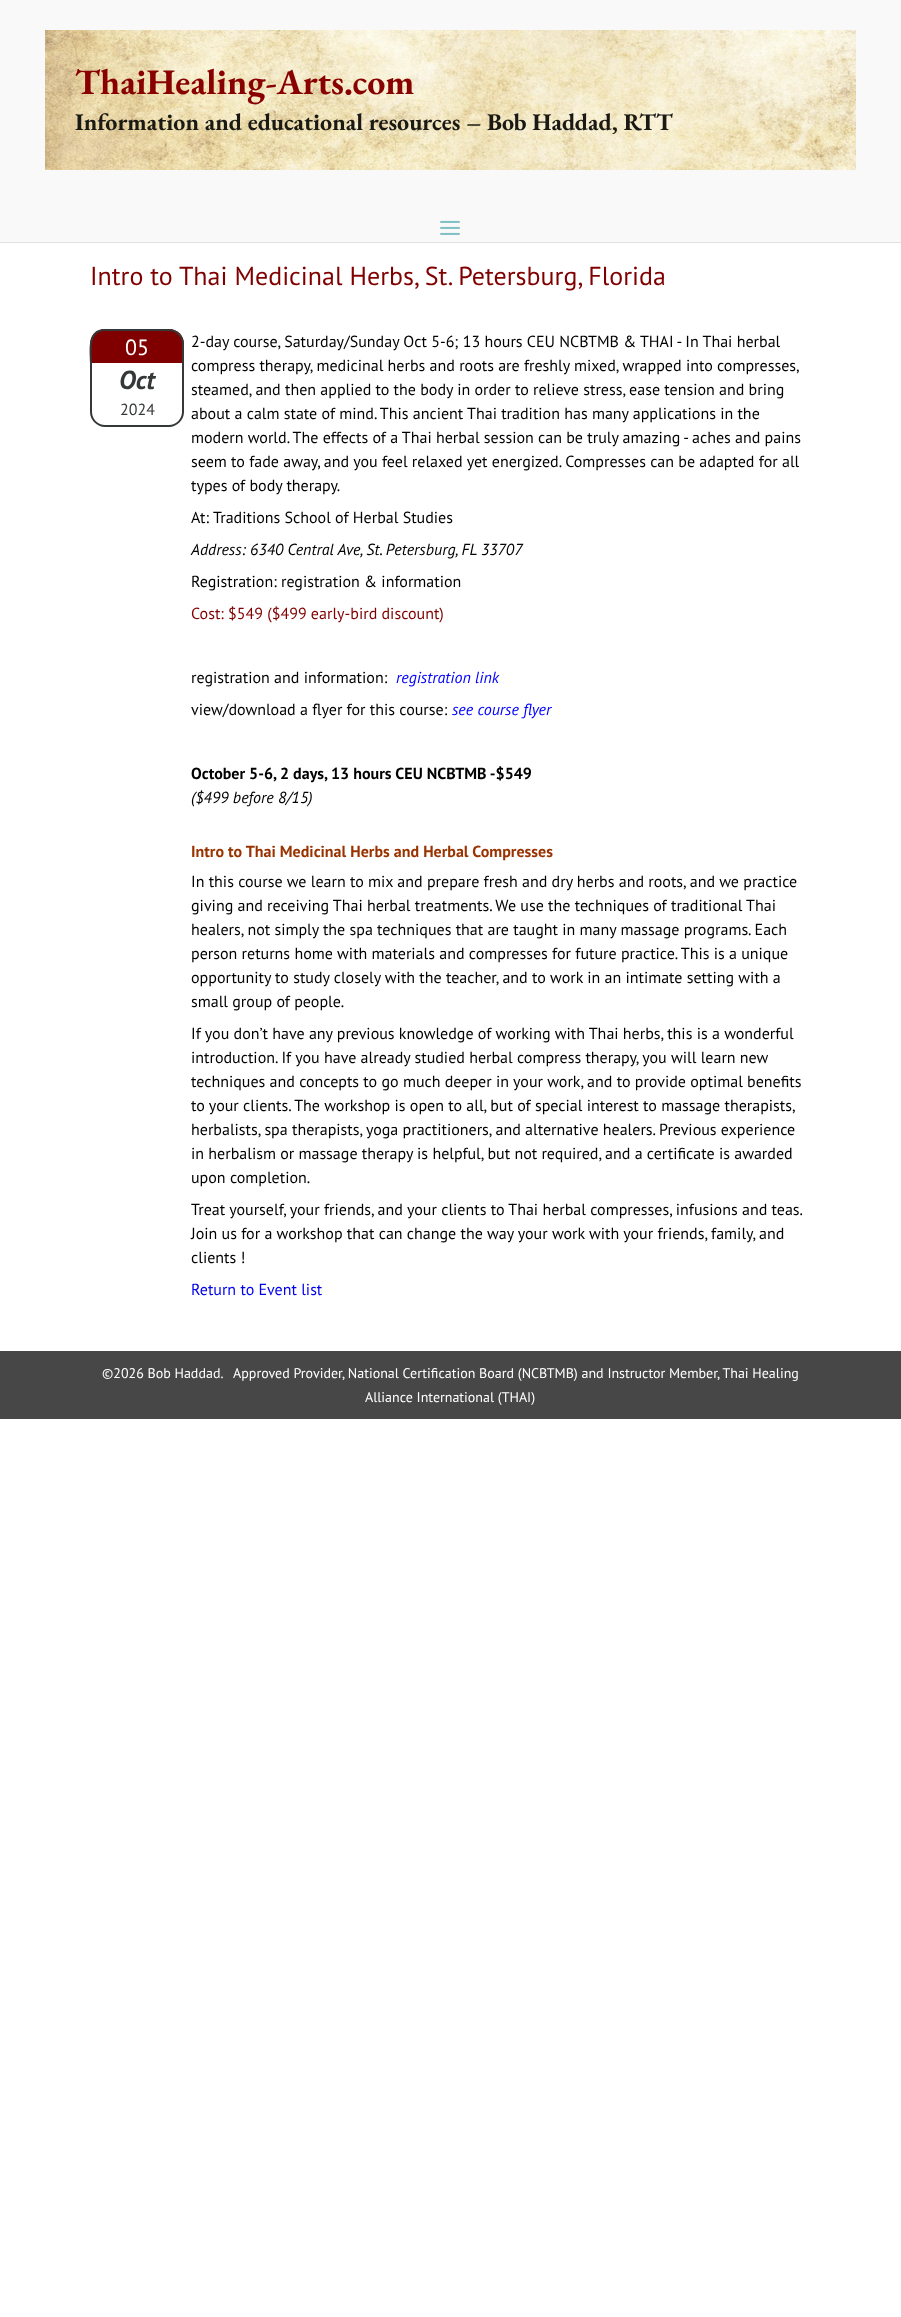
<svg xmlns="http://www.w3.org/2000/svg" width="901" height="2317">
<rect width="100%" height="100%" fill="#fff"/>
<rect width="901" height="242" fill="#f9f9f9"/>
<rect y="242" width="901" height="1" fill="#e1e1e1"/>
<image x="45" y="30" width="811" height="140" href="media/1.png"/>
<text x="75" y="94" style="font-family:EB Garamond;font-size:36px;font-weight:bold;fill:#800">ThaiHealing-Arts.com</text>
<text x="75" y="130" style="font-family:EB Garamond;font-size:24px;font-weight:bold;fill:#1a1914">Information and educational resources – Bob Haddad, RTT</text>
<image x="440" y="220" width="20" height="15" href="media/2.png"/>
<text x="90" y="285" style="font-family:PT Sans;font-size:26px;fill:#800000">Intro to Thai Medicinal Herbs, St. Petersburg, Florida</text>
<path d="M105 329h64c8.5 0 15 6.5 15 15v19h-94v-19c0-8.5 6.5-15 15-15z" fill="#800000"/>
<path d="M105 329h64c8 0 15 7 15 15v19h-94c0-12-4-34 15-34zm0 2h64c7 0 13 6 13 13v19h-90c0-11-4-32 13-32z" fill="#343838" fill-rule="evenodd"/>
<text x="125" y="355" style="font-family:PT Sans;font-size:22px;fill:#fff">05</text>
<path d="M90 363h94v49c0 8-7 15-15 15h-64c-8 0-15-7-15-15zm2 0h90v49c0 7-6 13-13 13h-64c-7 0-13-6-13-13z" fill="#343838" fill-rule="evenodd"/>
<text x="119" y="389" style="font-family:PT Sans;font-size:26px;font-weight:bold;font-style:italic;fill:#343838">Oct</text>
<text x="120" y="415" style="font-family:PT Sans;font-size:16px;fill:#343838">2024</text>
<text x="191" y="347" style="font-family:PT Sans;font-size:16px;fill:#000">2-day course, Saturday/Sunday Oct 5-6; 13 hours CEU NCBTMB &amp; THAI - In Thai herbal</text>
<text x="191" y="371" style="font-family:PT Sans;font-size:16px;fill:#000">compress therapy, medicinal herbs and roots are freshly mixed, wrapped into compresses,</text>
<text x="191" y="395" style="font-family:PT Sans;font-size:16px;fill:#000">steamed, and then applied to the body in order to relieve stress, ease tension and bring</text>
<text x="191" y="419" style="font-family:PT Sans;font-size:16px;fill:#000">about a calm state of mind. This ancient Thai tradition has many applications in the</text>
<text x="191" y="443" style="font-family:PT Sans;font-size:16px;fill:#000">modern world. The effects of a Thai herbal session can be truly amazing - aches and pains</text>
<text x="191" y="467" style="font-family:PT Sans;font-size:16px;fill:#000">seem to fade away, and you feel relaxed yet energized. Compresses can be adapted for all</text>
<text x="191" y="491" style="font-family:PT Sans;font-size:16px;fill:#000">types of body therapy.</text>
<text x="191" y="523" style="font-family:PT Sans;font-size:16px;fill:#000">At:</text>
<text x="213" y="523" style="font-family:PT Sans;font-size:16px;fill:#000">Traditions School of Herbal Studies</text>
<text x="191" y="555" style="font-family:PT Sans;font-size:16px;font-style:italic;fill:#000">Address: 6340 Central Ave, St. Petersburg, FL 33707</text>
<text x="191" y="587" style="font-family:PT Sans;font-size:16px;fill:#000">Registration: registration &amp; information</text>
<text x="191" y="619" style="font-family:PT Sans;font-size:16px;fill:#800000">Cost: $549 ($499 early-bird discount)</text>
<text x="191" y="683" style="font-family:PT Sans;font-size:16px;fill:#000">registration and information:</text>
<text x="396" y="683" style="font-family:PT Sans;font-size:16px;font-style:italic;fill:#00f">registration link</text>
<text x="191" y="715" style="font-family:PT Sans;font-size:16px;fill:#000">view/download a flyer for this course:</text>
<text x="452" y="715" style="font-family:PT Sans;font-size:16px;font-style:italic;fill:#00f">see course flyer</text>
<text x="191" y="779" style="font-family:PT Sans;font-size:16px;font-weight:bold;fill:#000">October 5-6, 2 days, 13 hours CEU NCBTMB -$549</text>
<text x="191" y="803" style="font-family:PT Sans;font-size:16px;font-style:italic;fill:#000">($499 before 8/15)</text>
<text x="191" y="857" style="font-family:PT Sans;font-size:16px;font-weight:bold;fill:#930">Intro to Thai Medicinal Herbs and Herbal Compresses</text>
<text x="191" y="887" style="font-family:PT Sans;font-size:16px;fill:#000">In this course we learn to mix and prepare fresh and dry herbs and roots, and we practice</text>
<text x="191" y="911" style="font-family:PT Sans;font-size:16px;fill:#000">giving and receiving Thai herbal treatments. We use the techniques of traditional Thai</text>
<text x="191" y="935" style="font-family:PT Sans;font-size:16px;fill:#000">healers, not simply the spa techniques that are taught in many massage programs. Each</text>
<text x="191" y="959" style="font-family:PT Sans;font-size:16px;fill:#000">person returns home with materials and compresses for future practice. This is a unique</text>
<text x="191" y="983" style="font-family:PT Sans;font-size:16px;fill:#000">opportunity to study closely with the teacher, and to work in an intimate setting with a</text>
<text x="191" y="1007" style="font-family:PT Sans;font-size:16px;fill:#000">small group of people.</text>
<text x="191" y="1039" style="font-family:PT Sans;font-size:16px;fill:#000">If you don’t have any previous knowledge of working with Thai herbs, this is a wonderful</text>
<text x="191" y="1063" style="font-family:PT Sans;font-size:16px;fill:#000">introduction. If you have already studied herbal compress therapy, you will learn new</text>
<text x="191" y="1087" style="font-family:PT Sans;font-size:16px;fill:#000">techniques and concepts to go much deeper in your work, and to provide optimal benefits</text>
<text x="191" y="1111" style="font-family:PT Sans;font-size:16px;fill:#000">to your clients. The workshop is open to all, but of special interest to massage therapists,</text>
<text x="191" y="1135" style="font-family:PT Sans;font-size:16px;fill:#000">herbalists, spa therapists, yoga practitioners, and alternative healers. Previous experience</text>
<text x="191" y="1159" style="font-family:PT Sans;font-size:16px;fill:#000">in herbalism or massage therapy is helpful, but not required, and a certificate is awarded</text>
<text x="191" y="1183" style="font-family:PT Sans;font-size:16px;fill:#000">upon completion.</text>
<text x="191" y="1215" style="font-family:PT Sans;font-size:16px;fill:#000">Treat yourself, your friends, and your clients to Thai herbal compresses, infusions and teas.</text>
<text x="191" y="1239" style="font-family:PT Sans;font-size:16px;fill:#000">Join us for a workshop that can change the way your work with your friends, family, and</text>
<text x="191" y="1263" style="font-family:PT Sans;font-size:16px;fill:#000">clients !</text>
<text x="191" y="1295" style="font-family:PT Sans;font-size:16px;fill:#00e">Return to Event list</text>
<rect y="1351" width="901" height="68" fill="#474747"/>
<text x="102" y="1378" style="font-family:PT Sans;font-size:14px;fill:#fff" xml:space="preserve">©2026 Bob Haddad.   Approved Provider, National Certification Board (NCBTMB) and Instructor Member, Thai Healing</text>
<text x="365" y="1402" style="font-family:PT Sans;font-size:14px;fill:#fff">Alliance International (THAI)</text>
</svg>
